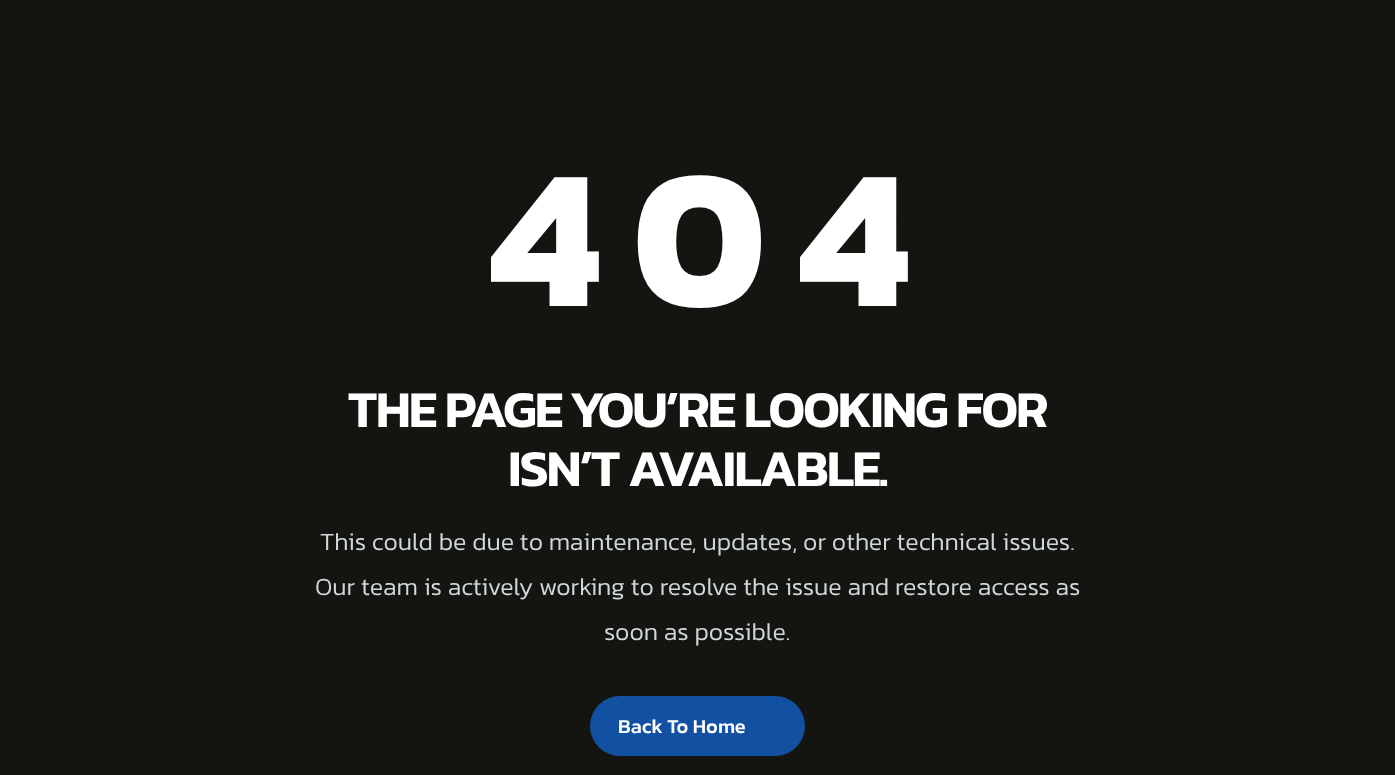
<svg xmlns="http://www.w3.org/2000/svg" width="1395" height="775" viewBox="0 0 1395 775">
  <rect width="100%" height="100%" fill="rgb(20,21,17)"/>
  <text x="490" y="306" font-family="Kanit" font-size="200" font-weight="bold" letter-spacing="-4" fill="rgb(255,255,255)">4 0 4</text>
  <g font-family="Kanit" font-size="52" font-weight="600" letter-spacing="-2" fill="rgb(255,255,255)">
    <text x="348" y="427">THE PAGE YOU’RE LOOKING FOR</text>
    <text x="508" y="486">ISN’T AVAILABLE.</text>
  </g>
  <g font-family="Kanit" font-size="25" font-weight="300" fill="rgb(207,215,218)">
    <text x="320" y="550">This could be due to maintenance, updates, or other technical issues.</text>
    <text x="315" y="595">Our team is actively working to resolve the issue and restore access as</text>
    <text x="604" y="640">soon as possible.</text>
  </g>
  <rect x="590" y="696" width="215" height="60" rx="30" fill="rgb(18,80,161)"/>
  <text x="618" y="733" font-family="Kanit" font-size="20" font-weight="500" fill="rgb(255,255,255)">Back To Home</text>
</svg>
